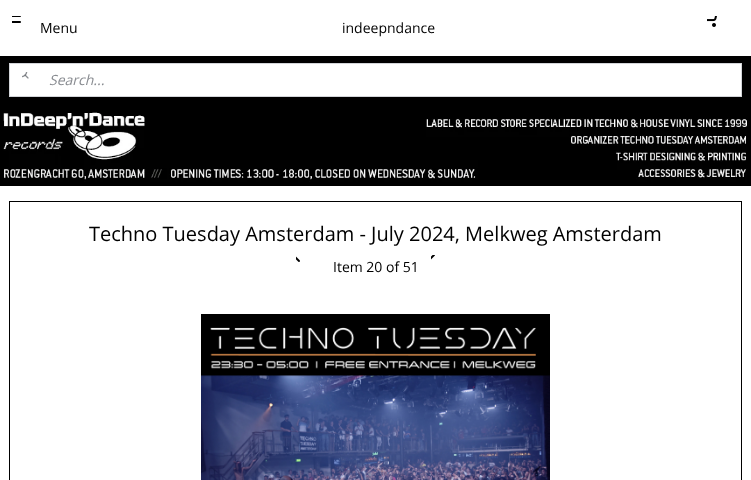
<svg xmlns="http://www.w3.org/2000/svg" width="751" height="480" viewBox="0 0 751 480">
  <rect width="100%" height="100%" fill="rgb(255,255,255)"/>
  <image x="12" y="16" width="9" height="7" href="pic1.png"/>
  <g font-family="Open Sans" font-size="14" fill="rgb(0,0,0)">
    <text x="40" y="33">Menu</text>
    <text x="342" y="33">indeepndance</text>
  </g>
  <image x="707" y="16" width="10" height="11" href="pic2.png"/>
  <rect x="0" y="56" width="751" height="130" fill="rgb(0,0,0)"/>
  <rect x="9.5" y="63.5" width="732" height="33" fill="rgb(255,255,255)" stroke="rgb(211,213,217)"/>
  <image x="22" y="72" width="7" height="7" href="pic3.png"/>
  <text x="49" y="85" font-family="Open Sans" font-size="14" font-style="italic" fill="rgb(137,140,145)">Search...</text>
  <image x="3" y="112" width="744" height="70" href="pic4.png"/>
  <rect x="9.5" y="201.5" width="732" height="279" fill="none" stroke="rgb(0,0,0)"/>
  <text x="89" y="241" font-family="Open Sans" font-size="20" fill="rgb(0,0,0)">Techno Tuesday Amsterdam - July 2024, Melkweg Amsterdam</text>
  <image x="296" y="256" width="4" height="6" href="pic5.png"/>
  <image x="431" y="255" width="4" height="5" href="pic6.png"/>
  <text x="333" y="272" font-family="Open Sans" font-size="14" fill="rgb(0,0,0)">Item 20 of 51</text>
  <image x="201" y="314" width="349" height="166" href="pic7.png"/>
</svg>
